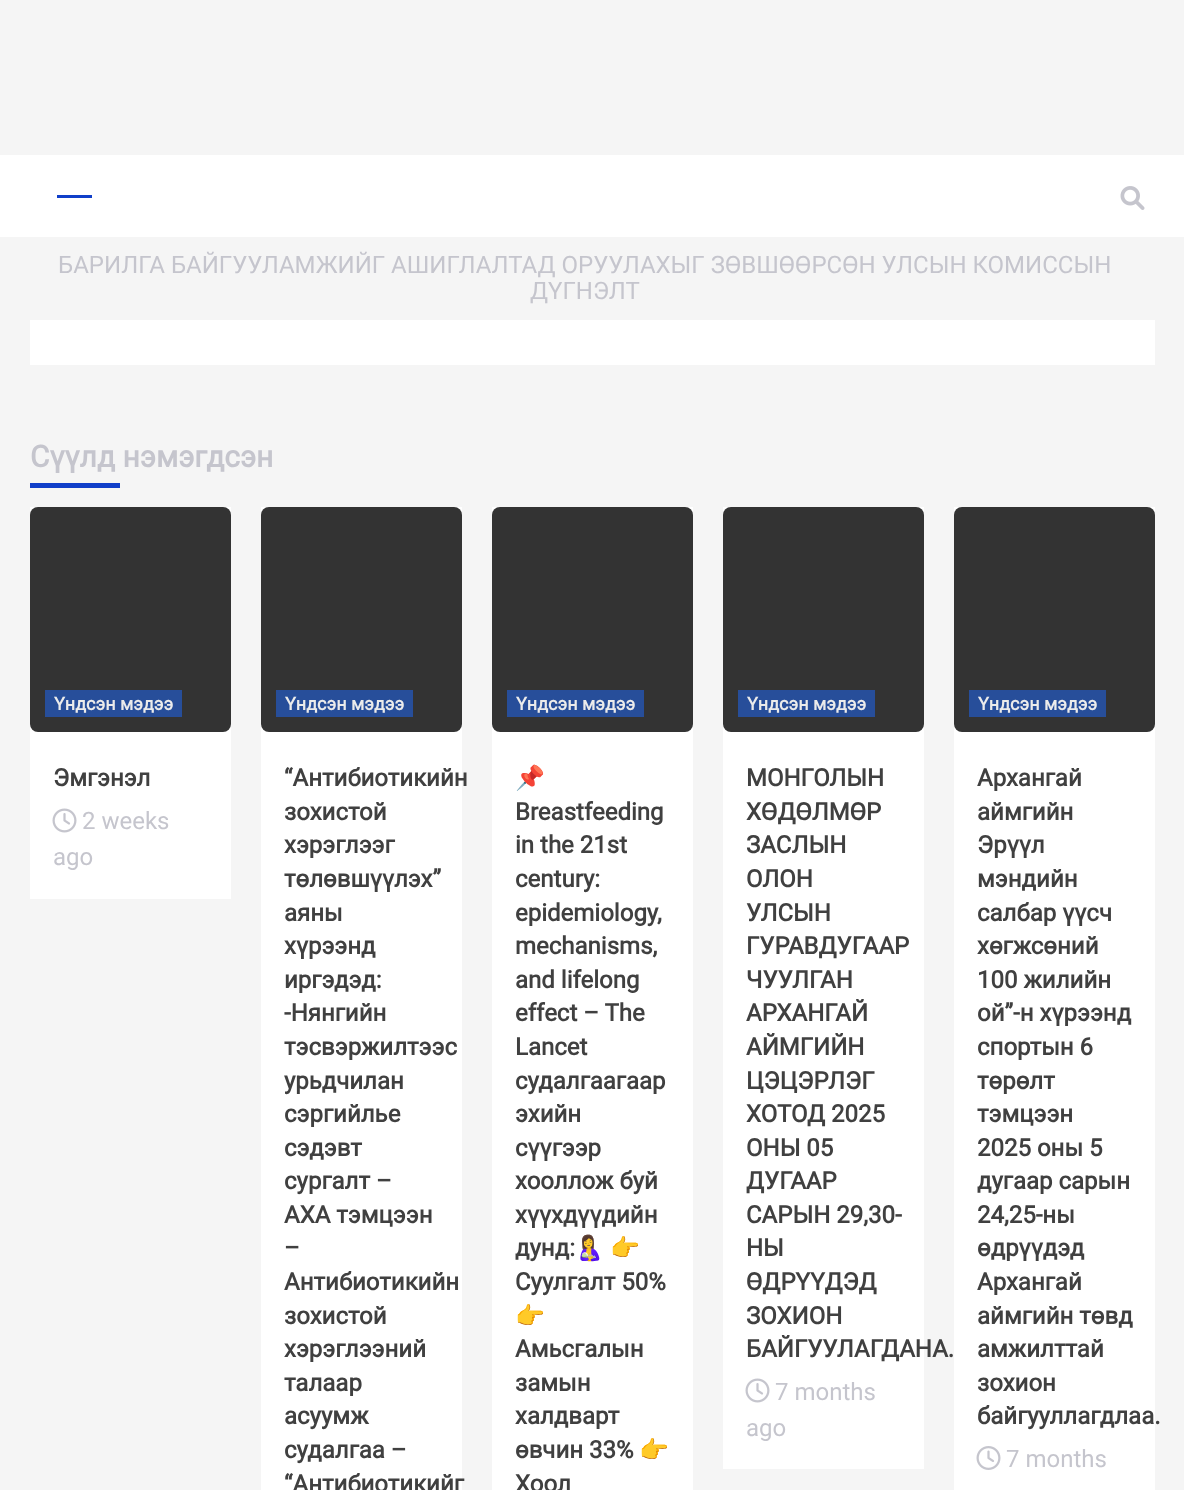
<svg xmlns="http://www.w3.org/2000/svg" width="1184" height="1490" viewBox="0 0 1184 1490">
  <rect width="100%" height="100%" fill="rgb(245,245,245)"/>
  <rect x="0" y="155" width="1184" height="82" fill="rgb(255,255,255)"/>
  <rect x="57" y="195" width="35" height="3" fill="rgb(16,63,201)"/>
  <image x="1120" y="186" width="25" height="24" href="pic1.png"/>
  <g font-family="Roboto" font-size="24" fill="rgb(197,197,205)">
    <text x="58" y="273">БАРИЛГА БАЙГУУЛАМЖИЙГ АШИГЛАЛТАД ОРУУЛАХЫГ ЗӨВШӨӨРСӨН УЛСЫН КОМИССЫН</text>
    <text x="530" y="299">ДҮГНЭЛТ</text>
  </g>
  <rect x="30" y="320" width="1125" height="45" fill="rgb(255,255,255)"/>
  <text x="30" y="467" font-family="Roboto" font-size="30" font-weight="bold" fill="rgb(197,197,205)">Сүүлд нэмэгдсэн</text>
  <rect x="30" y="483" width="90" height="5" fill="rgb(16,63,201)"/>
  <rect x="30" y="507" width="201" height="392" fill="rgb(255,255,255)"/>
  <rect x="30" y="507" width="201" height="225" rx="8" fill="rgb(51,51,51)"/>
  <rect x="45" y="690" width="137" height="27" fill="rgb(39,78,154)"/>
  <text x="54" y="710" font-family="Roboto" font-size="18" font-weight="bold" fill="rgb(235,235,235)">Үндсэн мэдээ</text>
  <text x="53" y="786" font-family="Roboto" font-size="24" font-weight="bold" fill="rgb(64,64,64)">Эмгэнэл</text>
  <image x="52" y="808" width="25" height="25" href="pic2.png"/>
  <g font-family="Roboto" font-size="24" fill="rgb(197,197,205)">
    <text x="82" y="829">2 weeks</text>
    <text x="53" y="865">ago</text>
  </g>
  <rect x="261" y="507" width="201" height="983" fill="rgb(255,255,255)"/>
  <rect x="261" y="507" width="201" height="225" rx="8" fill="rgb(51,51,51)"/>
  <rect x="276" y="690" width="137" height="27" fill="rgb(39,78,154)"/>
  <text x="285" y="710" font-family="Roboto" font-size="18" font-weight="bold" fill="rgb(235,235,235)">Үндсэн мэдээ</text>
  <g font-family="Roboto" font-size="24" font-weight="bold" fill="rgb(64,64,64)">
    <text>
      <tspan x="284" y="786">“Антибиотикийн</tspan>
      <tspan x="284" y="820">зохистой</tspan>
      <tspan x="284" y="853">хэрэглээг</tspan>
      <tspan x="284" y="887">төлөвшүүлэх”</tspan>
      <tspan x="284" y="921">аяны</tspan>
      <tspan x="284" y="954">хүрээнд</tspan>
      <tspan x="284" y="988">иргэдэд:</tspan>
      <tspan x="284" y="1021">-Нянгийн</tspan>
      <tspan x="284" y="1055">тэсвэржилтээс</tspan>
      <tspan x="284" y="1089">урьдчилан</tspan>
      <tspan x="284" y="1122">сэргийлье</tspan>
      <tspan x="284" y="1156">сэдэвт</tspan>
      <tspan x="284" y="1189">сургалт –</tspan>
      <tspan x="284" y="1223">АХА тэмцээн</tspan>
      <tspan x="284" y="1256">–</tspan>
      <tspan x="284" y="1290">Антибиотикийн</tspan>
      <tspan x="284" y="1324">зохистой</tspan>
      <tspan x="284" y="1357">хэрэглээний</tspan>
      <tspan x="284" y="1391">талаар</tspan>
      <tspan x="284" y="1424">асуумж</tspan>
      <tspan x="284" y="1458">судалгаа –</tspan>
      <tspan x="284" y="1492">“Антибиотикийг</tspan>
    </text>
  </g>
  <rect x="492" y="507" width="201" height="983" fill="rgb(255,255,255)"/>
  <rect x="492" y="507" width="201" height="225" rx="8" fill="rgb(51,51,51)"/>
  <rect x="507" y="690" width="137" height="27" fill="rgb(39,78,154)"/>
  <text x="516" y="710" font-family="Roboto" font-size="18" font-weight="bold" fill="rgb(235,235,235)">Үндсэн мэдээ</text>
  <text x="515" y="786" font-family="Noto Color Emoji" font-size="24" font-weight="bold" fill="rgb(64,64,64)">📌</text>
  <g font-family="Roboto" font-size="24" font-weight="bold" fill="rgb(64,64,64)">
    <text>
      <tspan x="515" y="820">Breastfeeding</tspan>
      <tspan x="515" y="853">in the 21st</tspan>
      <tspan x="515" y="887">century:</tspan>
      <tspan x="515" y="921">epidemiology,</tspan>
      <tspan x="515" y="954">mechanisms,</tspan>
      <tspan x="515" y="988">and lifelong</tspan>
      <tspan x="515" y="1021">effect – The</tspan>
      <tspan x="515" y="1055">Lancet</tspan>
      <tspan x="515" y="1089">судалгаагаар</tspan>
      <tspan x="515" y="1122">эхийн</tspan>
      <tspan x="515" y="1156">сүүгээр</tspan>
      <tspan x="515" y="1189">хооллож буй</tspan>
      <tspan x="515" y="1223">хүүхдүүдийн</tspan>
      <tspan x="515" y="1256">дунд:</tspan>
    </text>
  </g>
  <g font-family="Noto Color Emoji" font-size="24" font-weight="bold" fill="rgb(64,64,64)">
    <text x="574" y="1256">🤱</text>
    <text x="610" y="1256">👉</text>
  </g>
  <text x="515" y="1290" font-family="Roboto" font-size="24" font-weight="bold" fill="rgb(64,64,64)">Суулгалт 50%</text>
  <text x="515" y="1324" font-family="Noto Color Emoji" font-size="24" font-weight="bold" fill="rgb(64,64,64)">👉</text>
  <g font-family="Roboto" font-size="24" font-weight="bold" fill="rgb(64,64,64)">
    <text>
      <tspan x="515" y="1357">Амьсгалын</tspan>
      <tspan x="515" y="1391">замын</tspan>
      <tspan x="515" y="1424">халдварт</tspan>
      <tspan x="515" y="1458">өвчин 33%</tspan>
    </text>
  </g>
  <text x="639" y="1458" font-family="Noto Color Emoji" font-size="24" font-weight="bold" fill="rgb(64,64,64)">👉</text>
  <text x="515" y="1492" font-family="Roboto" font-size="24" font-weight="bold" fill="rgb(64,64,64)">Хоол</text>
  <rect x="723" y="507" width="201" height="962" fill="rgb(255,255,255)"/>
  <rect x="723" y="507" width="201" height="225" rx="8" fill="rgb(51,51,51)"/>
  <rect x="738" y="690" width="137" height="27" fill="rgb(39,78,154)"/>
  <text x="747" y="710" font-family="Roboto" font-size="18" font-weight="bold" fill="rgb(235,235,235)">Үндсэн мэдээ</text>
  <g font-family="Roboto" font-size="24" font-weight="bold" fill="rgb(64,64,64)">
    <text>
      <tspan x="746" y="786">МОНГОЛЫН</tspan>
      <tspan x="746" y="820">ХӨДӨЛМӨР</tspan>
      <tspan x="746" y="853">ЗАСЛЫН</tspan>
      <tspan x="746" y="887">ОЛОН</tspan>
      <tspan x="746" y="921">УЛСЫН</tspan>
      <tspan x="746" y="954">ГУРАВДУГААР</tspan>
      <tspan x="746" y="988">ЧУУЛГАН</tspan>
      <tspan x="746" y="1021">АРХАНГАЙ</tspan>
      <tspan x="746" y="1055">АЙМГИЙН</tspan>
      <tspan x="746" y="1089">ЦЭЦЭРЛЭГ</tspan>
      <tspan x="746" y="1122">ХОТОД 2025</tspan>
      <tspan x="746" y="1156">ОНЫ 05</tspan>
      <tspan x="746" y="1189">ДУГААР</tspan>
      <tspan x="746" y="1223">САРЫН 29,30-</tspan>
      <tspan x="746" y="1256">НЫ</tspan>
      <tspan x="746" y="1290">ӨДРҮҮДЭД</tspan>
      <tspan x="746" y="1324">ЗОХИОН</tspan>
      <tspan x="746" y="1357">БАЙГУУЛАГДАНА.</tspan>
    </text>
  </g>
  <image x="745" y="1378" width="25" height="25" href="pic2.png"/>
  <g font-family="Roboto" font-size="24" fill="rgb(197,197,205)">
    <text x="775" y="1400">7 months</text>
    <text x="746" y="1436">ago</text>
  </g>
  <rect x="954" y="507" width="201" height="983" fill="rgb(255,255,255)"/>
  <rect x="954" y="507" width="201" height="225" rx="8" fill="rgb(51,51,51)"/>
  <rect x="969" y="690" width="137" height="27" fill="rgb(39,78,154)"/>
  <text x="978" y="710" font-family="Roboto" font-size="18" font-weight="bold" fill="rgb(235,235,235)">Үндсэн мэдээ</text>
  <g font-family="Roboto" font-size="24" font-weight="bold" fill="rgb(64,64,64)">
    <text>
      <tspan x="977" y="786">Архангай</tspan>
      <tspan x="977" y="820">аймгийн</tspan>
      <tspan x="977" y="853">Эрүүл</tspan>
      <tspan x="977" y="887">мэндийн</tspan>
      <tspan x="977" y="921">салбар үүсч</tspan>
      <tspan x="977" y="954">хөгжсөний</tspan>
      <tspan x="977" y="988">100 жилийн</tspan>
      <tspan x="977" y="1021">ой”-н хүрээнд</tspan>
      <tspan x="977" y="1055">спортын 6</tspan>
      <tspan x="977" y="1089">төрөлт</tspan>
      <tspan x="977" y="1122">тэмцээн</tspan>
      <tspan x="977" y="1156">2025 оны 5</tspan>
      <tspan x="977" y="1189">дугаар сарын</tspan>
      <tspan x="977" y="1223">24,25-ны</tspan>
      <tspan x="977" y="1256">өдрүүдэд</tspan>
      <tspan x="977" y="1290">Архангай</tspan>
      <tspan x="977" y="1324">аймгийн төвд</tspan>
      <tspan x="977" y="1357">амжилттай</tspan>
      <tspan x="977" y="1391">зохион</tspan>
      <tspan x="977" y="1424">байгууллагдлаа.</tspan>
    </text>
  </g>
  <image x="976" y="1446" width="25" height="24" href="pic3.png"/>
  <text x="1006" y="1467" font-family="Roboto" font-size="24" fill="rgb(197,197,205)">7 months</text>
</svg>
